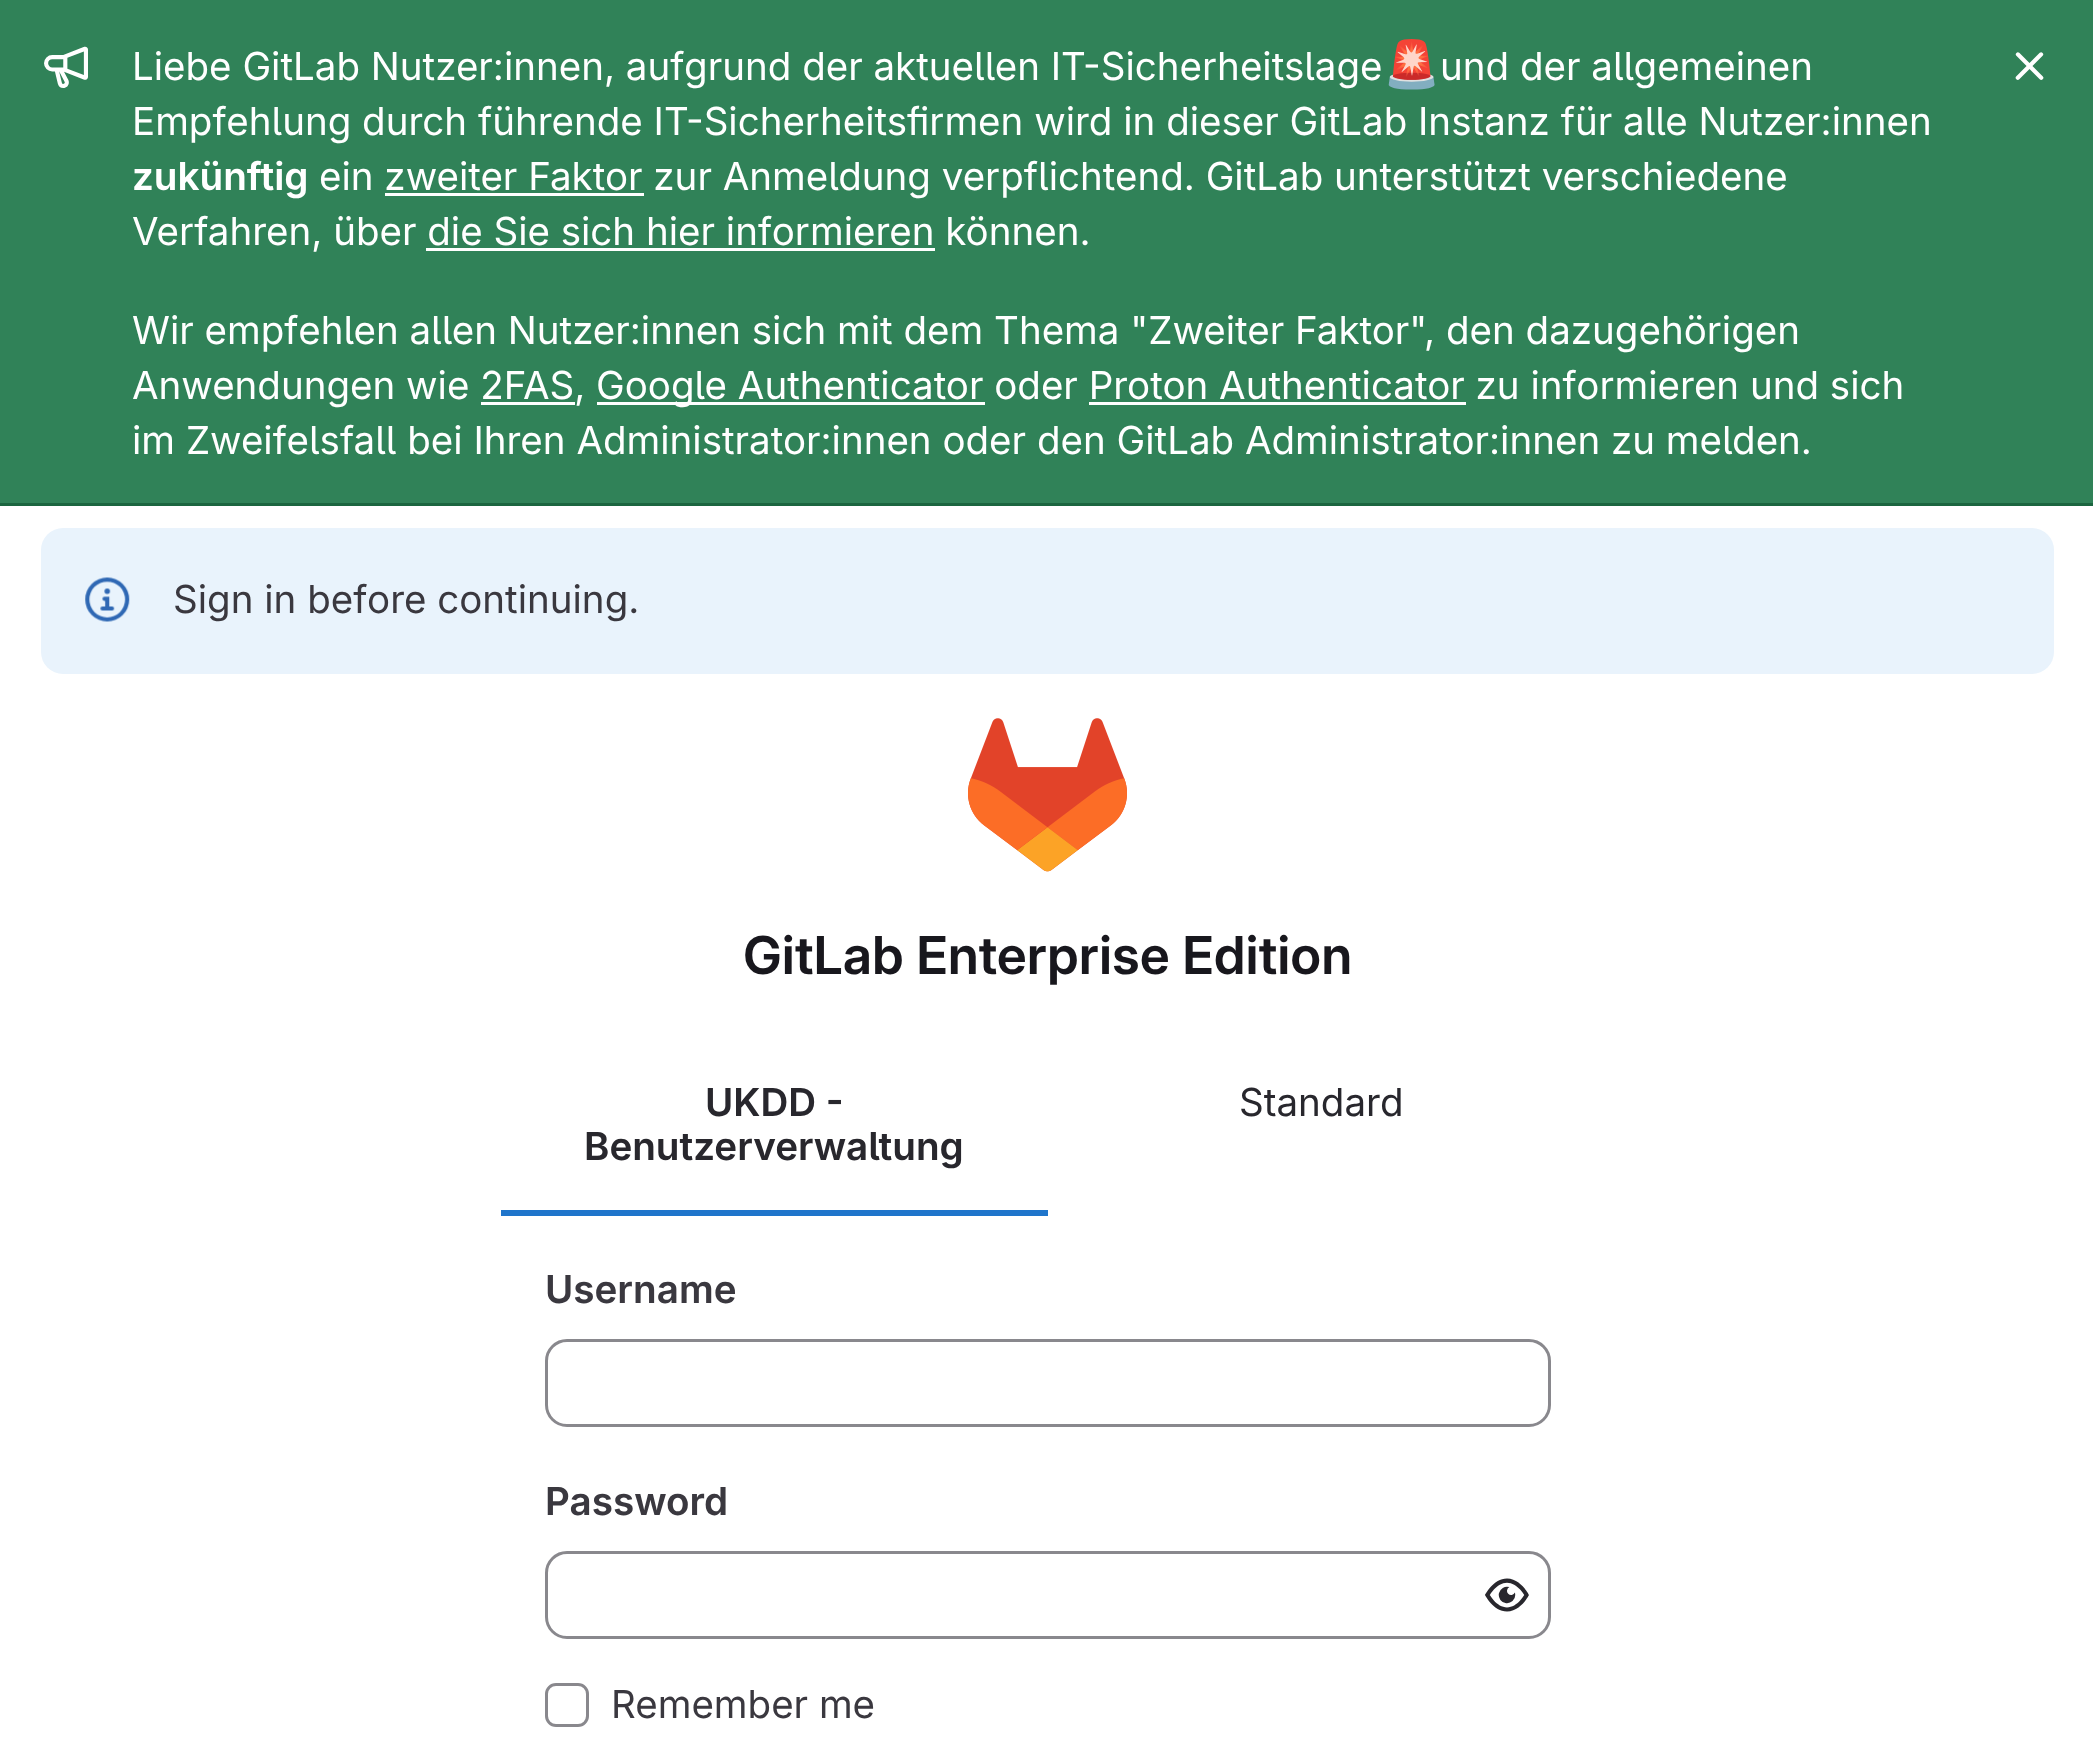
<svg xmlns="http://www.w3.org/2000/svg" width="2093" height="1743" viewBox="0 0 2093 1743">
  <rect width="100%" height="100%" fill="rgb(255,255,255)"/>
  <rect x="0" y="0" width="2093" height="503" fill="rgb(48,130,88)"/>
  <rect x="0" y="503" width="2093" height="3" fill="rgb(27,101,63)"/>
  <image x="44" y="46" width="44" height="42" href="pic1.png"/>
  <text x="132" y="80" font-family="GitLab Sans" font-size="38.5" fill="rgb(255,255,255)">Liebe GitLab Nutzer:innen, aufgrund der aktuellen IT-Sicherheitslage</text>
  <text x="1383" y="80" font-family="Noto Color Emoji" font-size="46" fill="rgb(255,255,255)">🚨</text>
  <g font-family="GitLab Sans" font-size="38.5" fill="rgb(255,255,255)">
    <text x="1440" y="80">und der allgemeinen</text>
    <text x="132" y="135">Empfehlung durch führende IT-Sicherheitsfirmen wird in dieser GitLab Instanz für alle Nutzer:innen</text>
  </g>
  <text x="132" y="190" font-family="GitLab Sans" font-size="38.5" font-weight="600" fill="rgb(255,255,255)">zukünftig</text>
  <text x="319" y="190" font-family="GitLab Sans" font-size="38.5" fill="rgb(255,255,255)">ein zweiter Faktor zur Anmeldung verpflichtend. GitLab unterstützt verschiedene</text>
  <rect x="385" y="193" width="259" height="3" fill="rgb(255,255,255)"/>
  <text x="132" y="245" font-family="GitLab Sans" font-size="38.5" fill="rgb(255,255,255)">Verfahren, über die Sie sich hier informieren können.</text>
  <rect x="426" y="248" width="509" height="3" fill="rgb(255,255,255)"/>
  <g font-family="GitLab Sans" font-size="38.5" fill="rgb(255,255,255)">
    <text>
      <tspan x="132" y="344">Wir empfehlen allen Nutzer:innen sich mit dem Thema "Zweiter Faktor", den dazugehörigen</tspan>
      <tspan x="132" y="399">Anwendungen wie 2FAS,</tspan>
    </text>
  </g>
  <rect x="597" y="402" width="388" height="3" fill="rgb(255,255,255)"/>
  <text x="596" y="399" font-family="GitLab Sans" font-size="38.5" fill="rgb(255,255,255)">Google Authenticator oder Proton Authenticator zu informieren und sich</text>
  <rect x="481" y="402" width="94" height="3" fill="rgb(255,255,255)"/>
  <rect x="1089" y="402" width="377" height="3" fill="rgb(255,255,255)"/>
  <text x="132" y="454" font-family="GitLab Sans" font-size="38.5" fill="rgb(255,255,255)">im Zweifelsfall bei Ihren Administrator:innen oder den GitLab Administrator:innen zu melden.</text>
  <image x="2015" y="52" width="29" height="28" href="pic2.png"/>
  <rect x="41" y="528" width="2013" height="146" rx="22" fill="rgb(233,243,252)"/>
  <image x="85" y="577" width="45" height="45" href="pic3.png"/>
  <text x="173" y="613" font-family="GitLab Sans" font-size="38.5" fill="rgb(58,56,63)">Sign in before continuing.</text>
  <image x="968" y="718" width="159" height="154" href="pic4.png"/>
  <text x="743" y="974" font-family="'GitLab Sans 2'" font-size="52.25" font-weight="600" fill="rgb(24,23,29)">GitLab Enterprise Edition</text>
  <g font-family="GitLab Sans" font-size="38.5" font-weight="600" fill="rgb(40,39,45)">
    <text x="705" y="1116">UKDD -</text>
    <text x="584" y="1160">Benutzerverwaltung</text>
  </g>
  <rect x="501" y="1210" width="547" height="6" fill="rgb(31,117,203)"/>
  <text x="1239" y="1116" font-family="GitLab Sans" font-size="38.5" fill="rgb(40,39,45)">Standard</text>
  <text x="545" y="1303" font-family="GitLab Sans" font-size="38.5" font-weight="600" fill="rgb(58,56,63)">Username</text>
  <rect x="546.5" y="1340.5" width="1003" height="85" rx="20.5" fill="none" stroke="rgb(137,136,141)" stroke-width="3"/>
  <text x="545" y="1515" font-family="GitLab Sans" font-size="38.5" font-weight="600" fill="rgb(58,56,63)">Password</text>
  <rect x="546.5" y="1552.5" width="1003" height="85" rx="20.5" fill="none" stroke="rgb(137,136,141)" stroke-width="3"/>
  <image x="1485" y="1578" width="44" height="34" href="pic5.png"/>
  <rect x="546.5" y="1684.5" width="41" height="41" rx="9.5" fill="none" stroke="rgb(137,136,141)" stroke-width="3"/>
  <text x="611" y="1718" font-family="GitLab Sans" font-size="38.5" fill="rgb(58,56,63)">Remember me</text>
</svg>
